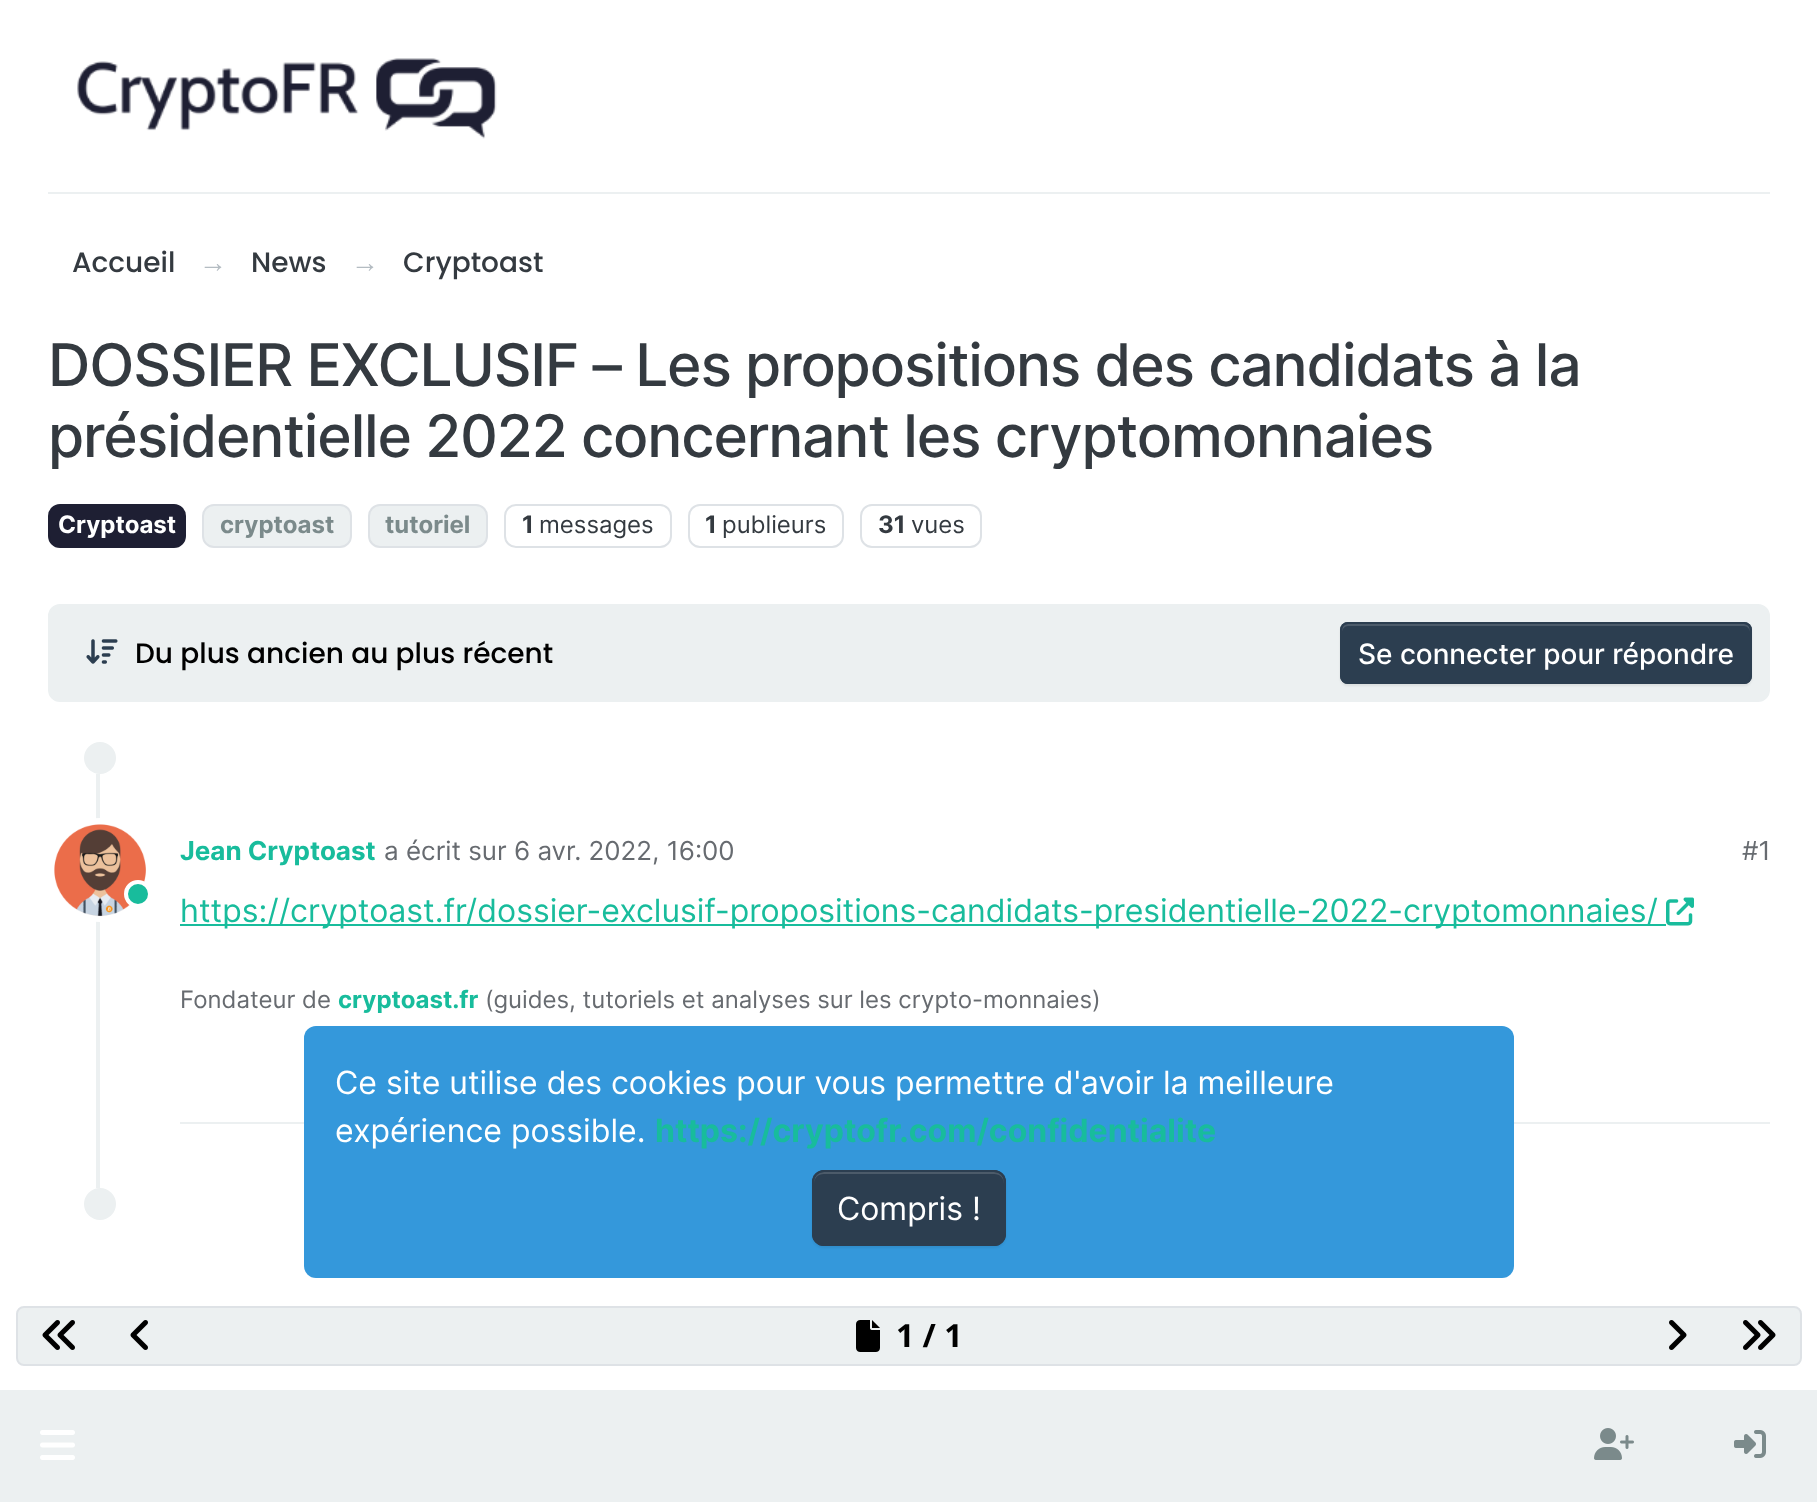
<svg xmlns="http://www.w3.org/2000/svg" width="1817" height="1502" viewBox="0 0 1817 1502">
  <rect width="100%" height="100%" fill="rgb(255,255,255)"/>
  <rect x="48" y="192" width="1722" height="2" fill="rgb(236,240,241)"/>
  <image x="77" y="58" width="420" height="81" href="pic1.png"/>
  <text x="72" y="272" font-family="Poppins" font-size="28" font-weight="500" fill="rgb(52,58,64)">Accueil</text>
  <text x="199" y="272" font-family="Liberation Sans" font-size="28" fill="rgb(180,188,194)">→</text>
  <text x="251" y="272" font-family="Poppins" font-size="28" font-weight="500" fill="rgb(52,58,64)">News</text>
  <text x="351" y="272" font-family="Liberation Sans" font-size="28" fill="rgb(180,188,194)">→</text>
  <text x="403" y="272" font-family="Poppins" font-size="28" font-weight="500" fill="rgb(52,58,64)">Cryptoast</text>
  <g font-family="Inter" font-size="58.75" font-weight="500" letter-spacing="-1.18" fill="rgb(52,58,64)">
    <text>
      <tspan x="48" y="386">DOSSIER EXCLUSIF – Les propositions des candidats à la</tspan>
      <tspan x="48" y="457">présidentielle 2022 concernant les cryptomonnaies</tspan>
    </text>
  </g>
  <rect x="49" y="505" width="136" height="42" rx="11" fill="rgb(30,31,51)" stroke="rgb(30,31,51)" stroke-width="2"/>
  <text x="58" y="533" font-family="Inter" font-size="24" font-weight="bold" fill="rgb(255,255,255)">Cryptoast</text>
  <rect x="203" y="505" width="148" height="42" rx="11" fill="rgb(236,240,241)" stroke="rgb(222,226,230)" stroke-width="2"/>
  <text x="220" y="533" font-family="Inter" font-size="24" font-weight="bold" fill="rgb(123,138,139)">cryptoast</text>
  <rect x="369" y="505" width="118" height="42" rx="11" fill="rgb(236,240,241)" stroke="rgb(222,226,230)" stroke-width="2"/>
  <text x="385" y="533" font-family="Inter" font-size="24" font-weight="bold" fill="rgb(123,138,139)">tutoriel</text>
  <rect x="505" y="505" width="166" height="42" rx="11" fill="none" stroke="rgb(222,226,230)" stroke-width="2"/>
  <text x="522" y="533" font-family="Inter" font-size="24" font-weight="bold" fill="rgb(52,58,64)">1</text>
  <text x="539" y="533" font-family="Inter" font-size="24" fill="rgb(52,58,64)">messages</text>
  <rect x="689" y="505" width="154" height="42" rx="11" fill="none" stroke="rgb(222,226,230)" stroke-width="2"/>
  <text x="705" y="533" font-family="Inter" font-size="24" font-weight="bold" fill="rgb(52,58,64)">1</text>
  <text x="722" y="533" font-family="Inter" font-size="24" fill="rgb(52,58,64)">publieurs</text>
  <rect x="861" y="505" width="120" height="42" rx="11" fill="none" stroke="rgb(222,226,230)" stroke-width="2"/>
  <text x="878" y="533" font-family="Inter" font-size="24" font-weight="bold" fill="rgb(52,58,64)">31</text>
  <text x="911" y="533" font-family="Inter" font-size="24" fill="rgb(52,58,64)">vues</text>
  <rect x="49" y="605" width="1720" height="96" rx="11" fill="rgb(236,240,241)" stroke="rgb(236,240,241)" stroke-width="2"/>
  <image x="86" y="639" width="32" height="25" href="pic2.png"/>
  <text x="135" y="663" font-family="Poppins" font-size="28" font-weight="500" fill="rgb(0,0,0)">Du plus ancien au plus récent</text>
  <rect x="1340" y="624" width="412" height="62" rx="8" fill="rgba(0,0,0,0.07)" filter="blur(1px)"/>
  <rect x="1340" y="622" width="412" height="62" rx="8" fill="rgb(44,62,80)"/>
  <path d="M1348 626H1744C1747 626 1750 629 1750 632C1750 628 1749 624 1744 624H1348C1343 624 1342 628 1342 632C1342 629 1345 626 1348 626Z" fill="rgb(76,91,106)"/>
  <rect x="1341" y="623" width="410" height="60" rx="7" fill="none" stroke="rgb(44,62,80)" stroke-width="2"/>
  <text x="1358" y="664" font-family="Inter" font-size="28" font-weight="500" fill="rgb(255,255,255)">Se connecter pour répondre</text>
  <rect x="96" y="774" width="4" height="414" fill="rgb(236,240,241)"/>
  <circle cx="100" cy="758" r="16" fill="rgb(236,240,241)"/>
  <circle cx="100" cy="870" r="50" fill="rgb(255,255,255)" stroke="rgb(255,255,255)" stroke-width="4"/>
  <image x="54" y="824" width="92" height="93" href="pic3.png"/>
  <circle cx="138" cy="894" r="12" fill="rgb(24,188,156)" stroke="rgb(255,255,255)" stroke-width="4"/>
  <text x="180" y="860" font-family="Inter" font-size="26" font-weight="bold" fill="rgb(24,188,156)">Jean Cryptoast</text>
  <g font-family="Inter" font-size="26" fill="rgb(103,107,112)">
    <text x="384" y="860">a écrit sur 6 avr. 2022, 16:00</text>
    <text x="1742" y="860">#1</text>
  </g>
  <rect x="180" y="924" width="1486" height="2" fill="rgb(24,188,156)"/>
  <text x="180" y="922" font-family="Inter" font-size="32" fill="rgb(24,188,156)">https://cryptoast.fr/dossier-exclusif-propositions-candidats-presidentielle-2022-cryptomonnaies/</text>
  <image x="1666" y="897" width="28" height="29" href="pic4.png"/>
  <rect x="180" y="1122" width="1590" height="2" fill="rgb(236,240,241)"/>
  <text x="180" y="1008" font-family="Inter" font-size="24" fill="rgb(103,107,112)">Fondateur de</text>
  <text x="338" y="1008" font-family="Inter" font-size="24" font-weight="bold" fill="rgb(24,188,156)">cryptoast.fr</text>
  <text x="485" y="1008" font-family="Inter" font-size="24" fill="rgb(103,107,112)">(guides, tutoriels et analyses sur les crypto-monnaies)</text>
  <circle cx="100" cy="1204" r="16" fill="rgb(236,240,241)"/>
  <rect x="304" y="1026" width="1210" height="252" rx="12" fill="rgb(52,152,219)"/>
  <g font-family="Inter" font-size="32" fill="rgb(255,255,255)">
    <text>
      <tspan x="335" y="1094">Ce site utilise des cookies pour vous permettre d'avoir la meilleure</tspan>
      <tspan x="335" y="1142">expérience possible.</tspan>
    </text>
  </g>
  <text x="655" y="1142" font-family="Inter" font-size="32" font-weight="bold" fill="rgb(24,188,156)">https://cryptofr.com/confidentialite</text>
  <rect x="812" y="1172" width="194" height="76" rx="12" fill="rgba(0,0,0,0.07)" filter="blur(1px)"/>
  <rect x="812" y="1170" width="194" height="76" rx="12" fill="rgb(44,62,80)"/>
  <path d="M824 1174H994C1000 1174 1004 1178 1004 1184V1182C1004 1176 1000 1172 994 1172H824C818 1172 814 1176 814 1182V1184C814 1178 818 1174 824 1174Z" fill="rgb(76,91,106)"/>
  <rect x="813" y="1171" width="192" height="74" rx="11" fill="none" stroke="rgb(44,62,80)" stroke-width="2"/>
  <text x="837" y="1220" font-family="Inter" font-size="32" fill="rgb(255,255,255)">Compris !</text>
  <rect x="17" y="1307" width="1784" height="58" rx="7" fill="rgb(236,240,241)" stroke="rgb(222,226,230)" stroke-width="2"/>
  <image x="42" y="1320" width="33" height="30" href="pic5.png"/>
  <image x="130" y="1320" width="18" height="30" href="pic6.png"/>
  <image x="856" y="1320" width="24" height="32" href="pic7.png"/>
  <text x="896" y="1347" font-family="Noto Sans" font-size="32" font-weight="bold" fill="rgb(0,0,0)">1 / 1</text>
  <image x="1669" y="1320" width="18" height="30" href="pic8.png"/>
  <image x="1743" y="1320" width="33" height="30" href="pic9.png"/>
  <rect x="0" y="1390" width="1817" height="112" fill="rgb(236,240,241)"/>
  <image x="40" y="1430" width="35" height="30" href="pic10.png"/>
  <image x="1594" y="1428" width="40" height="32" href="pic11.png"/>
  <image x="1734" y="1430" width="32" height="28" href="pic12.png"/>
</svg>
